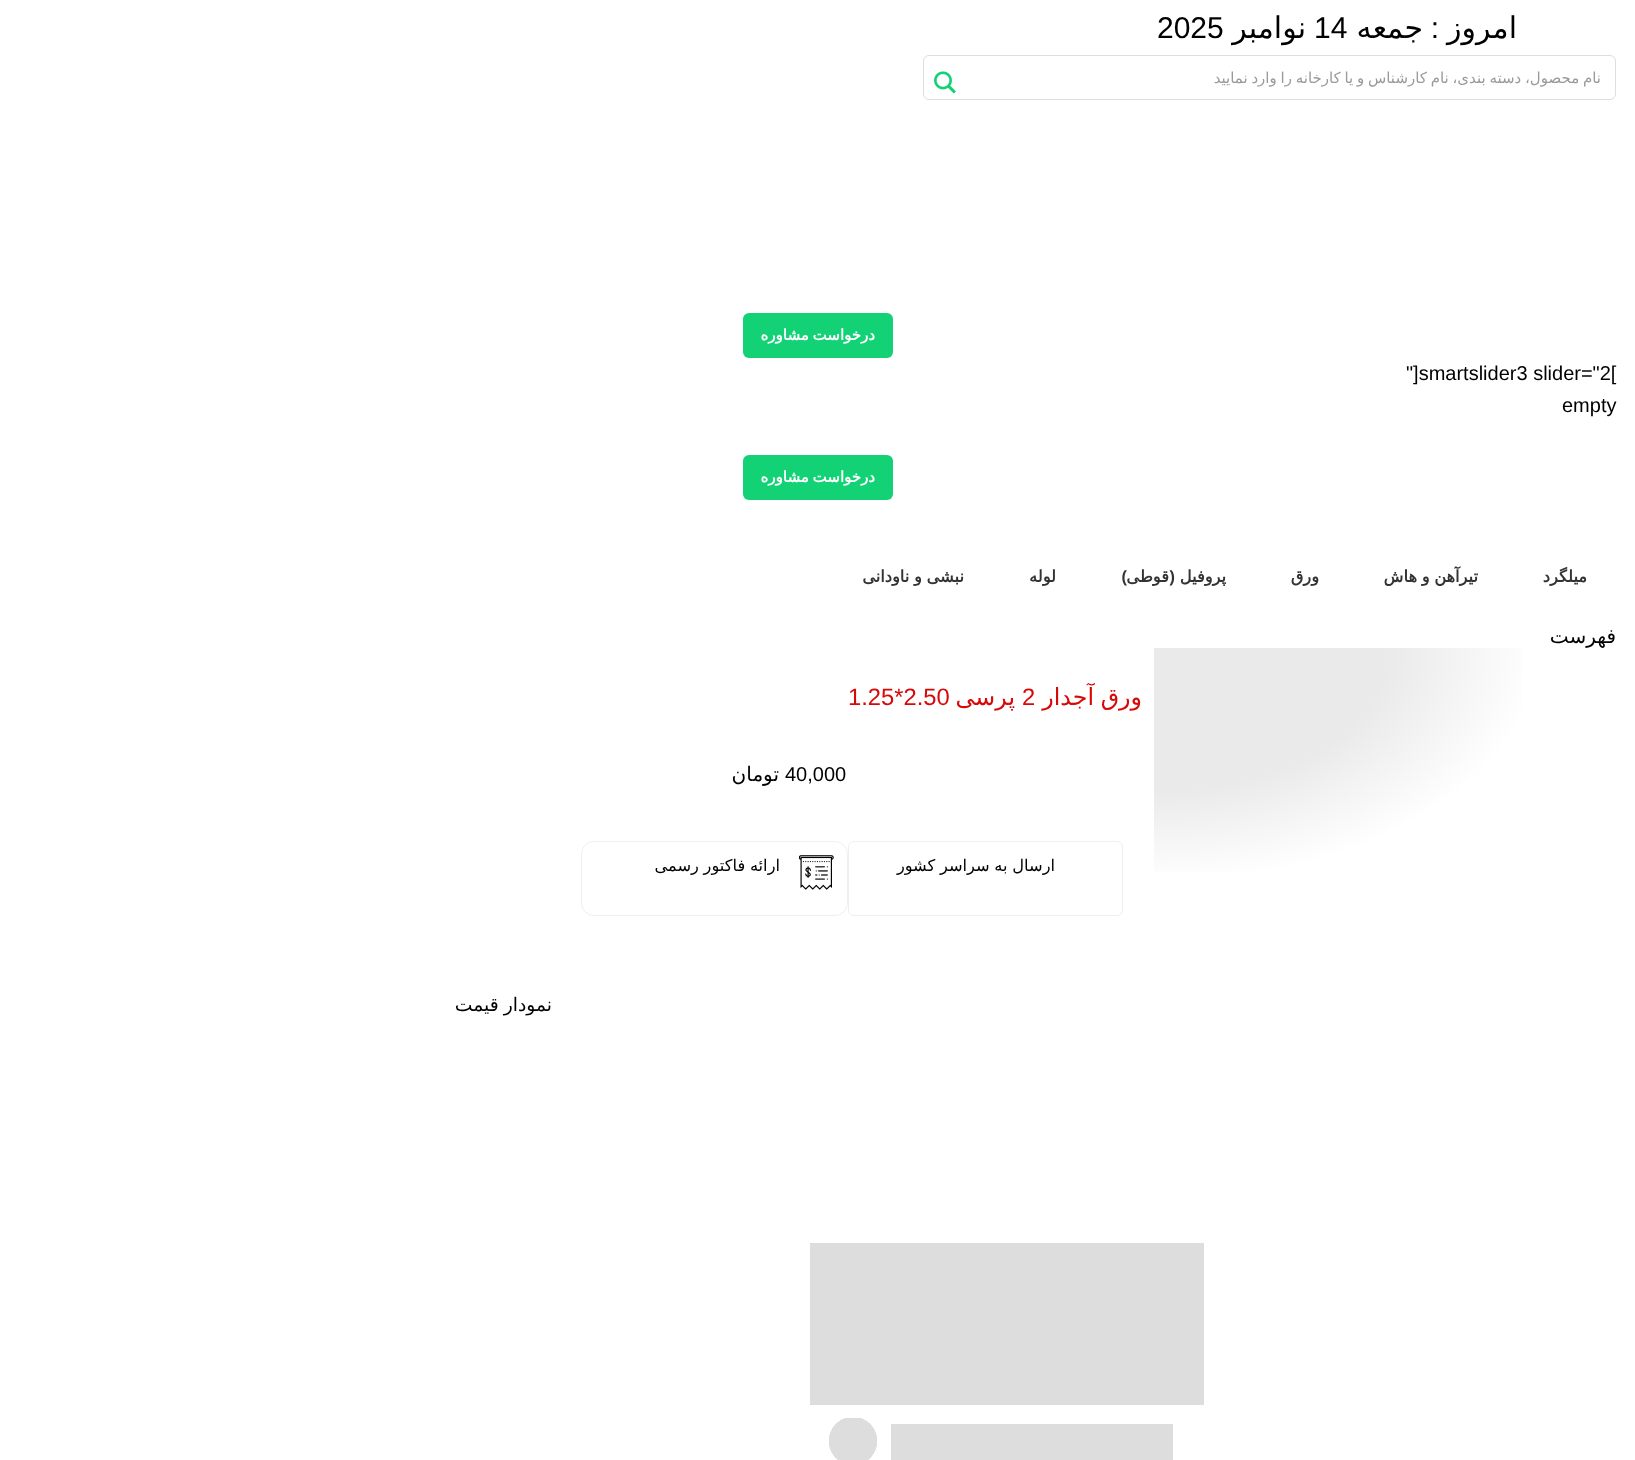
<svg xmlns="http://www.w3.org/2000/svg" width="1635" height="1460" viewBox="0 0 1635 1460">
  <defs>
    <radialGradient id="g1" gradientUnits="userSpaceOnUse" cx="0" cy="0" r="1" gradientTransform="matrix(654 0 0 398 1154 648)"><stop offset="0.36" stop-color="rgb(234,234,234)"/><stop offset="0.59" stop-color="rgb(255,255,255)"/></radialGradient>
    <radialGradient id="g2" gradientUnits="userSpaceOnUse" cx="853" cy="1441" r="48"><stop offset="0.5" stop-color="rgb(221,221,221)"/><stop offset="0.51" stop-color="rgb(221,221,221)" stop-opacity="0"/></radialGradient>
  </defs>
  <rect width="100%" height="100%" fill="rgb(255,255,255)"/>
  <text x="1517" y="38" font-family="DejaVu Sans" font-size="30" direction="rtl" fill="rgb(0,0,0)">امروز</text>
  <text x="1439" y="38" font-family="Liberation Sans" font-size="30" direction="rtl" fill="rgb(0,0,0)">:</text>
  <text x="1423" y="38" font-family="DejaVu Sans" font-size="30" direction="rtl" fill="rgb(0,0,0)">جمعه</text>
  <text x="1314" y="38" font-family="Liberation Sans" font-size="30" fill="rgb(0,0,0)">14</text>
  <text x="1306" y="38" font-family="DejaVu Sans" font-size="30" direction="rtl" fill="rgb(0,0,0)">نوامبر</text>
  <text x="1157" y="38" font-family="Liberation Sans" font-size="30" fill="rgb(0,0,0)">2025</text>
  <rect x="923.5" y="55.5" width="692" height="44" rx="5.5" fill="none" stroke="rgb(222,222,222)"/>
  <text x="1601" y="83" word-spacing="-1" font-family="DejaVu Sans" font-size="15" direction="rtl" fill="rgb(154,154,154)">نام محصول، دسته بندی، نام کارشناس و یا کارخانه را وارد نمایید</text>
  <image x="934" y="71" width="22" height="23" href="pic1.png"/>
  <rect x="743" y="313" width="150" height="45" rx="6" fill="rgb(19,210,118)"/>
  <text x="875" y="340" word-spacing="-1" font-family="DejaVu Sans" font-size="15" font-weight="bold" direction="rtl" fill="rgb(255,255,255)">درخواست مشاوره</text>
  <g font-family="Liberation Sans" font-size="20" fill="rgb(0,0,0)">
    <text x="1406" y="380">"]smartslider3 slider="2[</text>
    <text x="1562" y="412">empty</text>
  </g>
  <rect x="743" y="455" width="150" height="45" rx="6" fill="rgb(19,210,118)"/>
  <text x="875" y="482" word-spacing="-1" font-family="DejaVu Sans" font-size="15" font-weight="bold" direction="rtl" fill="rgb(255,255,255)">درخواست مشاوره</text>
  <g font-family="DejaVu Sans" font-size="16.25" font-weight="bold" direction="rtl" fill="rgb(51,51,51)">
    <text x="1587" y="582">میلگرد</text>
    <text x="1478" y="582" word-spacing="-0.5">تیرآهن و هاش</text>
    <text x="1319" y="582">ورق</text>
    <text x="1226" y="582">پروفیل</text>
  </g>
  <text x="1175" y="582" font-family="Liberation Sans" font-size="16.25" font-weight="bold" direction="rtl" fill="rgb(51,51,51)">(</text>
  <text x="1169" y="582" font-family="DejaVu Sans" font-size="16.25" font-weight="bold" direction="rtl" fill="rgb(51,51,51)">قوطی</text>
  <text x="1127" y="582" font-family="Liberation Sans" font-size="16.25" font-weight="bold" direction="rtl" fill="rgb(51,51,51)">)</text>
  <g font-family="DejaVu Sans" font-size="16.25" font-weight="bold" direction="rtl" fill="rgb(51,51,51)">
    <text x="1056" y="582">لوله</text>
    <text x="964" y="582" word-spacing="-0.5">نبشی و ناودانی</text>
  </g>
  <text x="1616" y="643" font-family="DejaVu Sans" font-size="20" direction="rtl" fill="rgb(0,0,0)">فهرست</text>
  <rect x="1154" y="648" width="368" height="224" fill="url(#g1)"/>
  <text x="1142" y="705" word-spacing="-1" font-family="DejaVu Sans" font-size="23.75" direction="rtl" fill="rgb(215,8,8)">ورق آجدار</text>
  <text x="1022" y="705" font-family="Liberation Sans" font-size="23.75" fill="rgb(215,8,8)">2</text>
  <text x="1015" y="705" font-family="DejaVu Sans" font-size="23.75" direction="rtl" fill="rgb(215,8,8)">پرسی</text>
  <text x="848" y="705" font-family="Liberation Sans" font-size="23.75" fill="rgb(215,8,8)">1.25*2.50</text>
  <text x="785" y="781" font-family="Liberation Sans" font-size="20" fill="rgb(0,0,0)">40,000</text>
  <text x="779" y="781" font-family="DejaVu Sans" font-size="20" direction="rtl" fill="rgb(0,0,0)">تومان</text>
  <rect x="848.5" y="841.5" width="274" height="74" rx="5.5" fill="none" stroke="rgb(239,239,239)"/>
  <text x="1055" y="871" word-spacing="-0.5" font-family="DejaVu Sans" font-size="16.25" direction="rtl" fill="rgb(0,0,0)">ارسال به سراسر کشور</text>
  <rect x="581.5" y="841.5" width="266" height="74" rx="12.5" fill="none" stroke="rgb(239,239,239)"/>
  <image x="799" y="855" width="35" height="35" href="pic2.png"/>
  <text x="780" y="871" word-spacing="-0.5" font-family="DejaVu Sans" font-size="16.25" direction="rtl" fill="rgb(0,0,0)">ارائه فاکتور رسمی</text>
  <text x="552" y="1011" word-spacing="-1" font-family="DejaVu Sans" font-size="18.75" direction="rtl" fill="rgb(0,0,0)">نمودار قیمت</text>
  <rect x="891" y="1424" width="282" height="36" fill="rgb(221,221,221)"/>
  <rect x="829" y="1418" width="48" height="42" fill="url(#g2)"/>
  <rect x="810" y="1243" width="394" height="162" fill="rgb(221,221,221)"/>
</svg>
